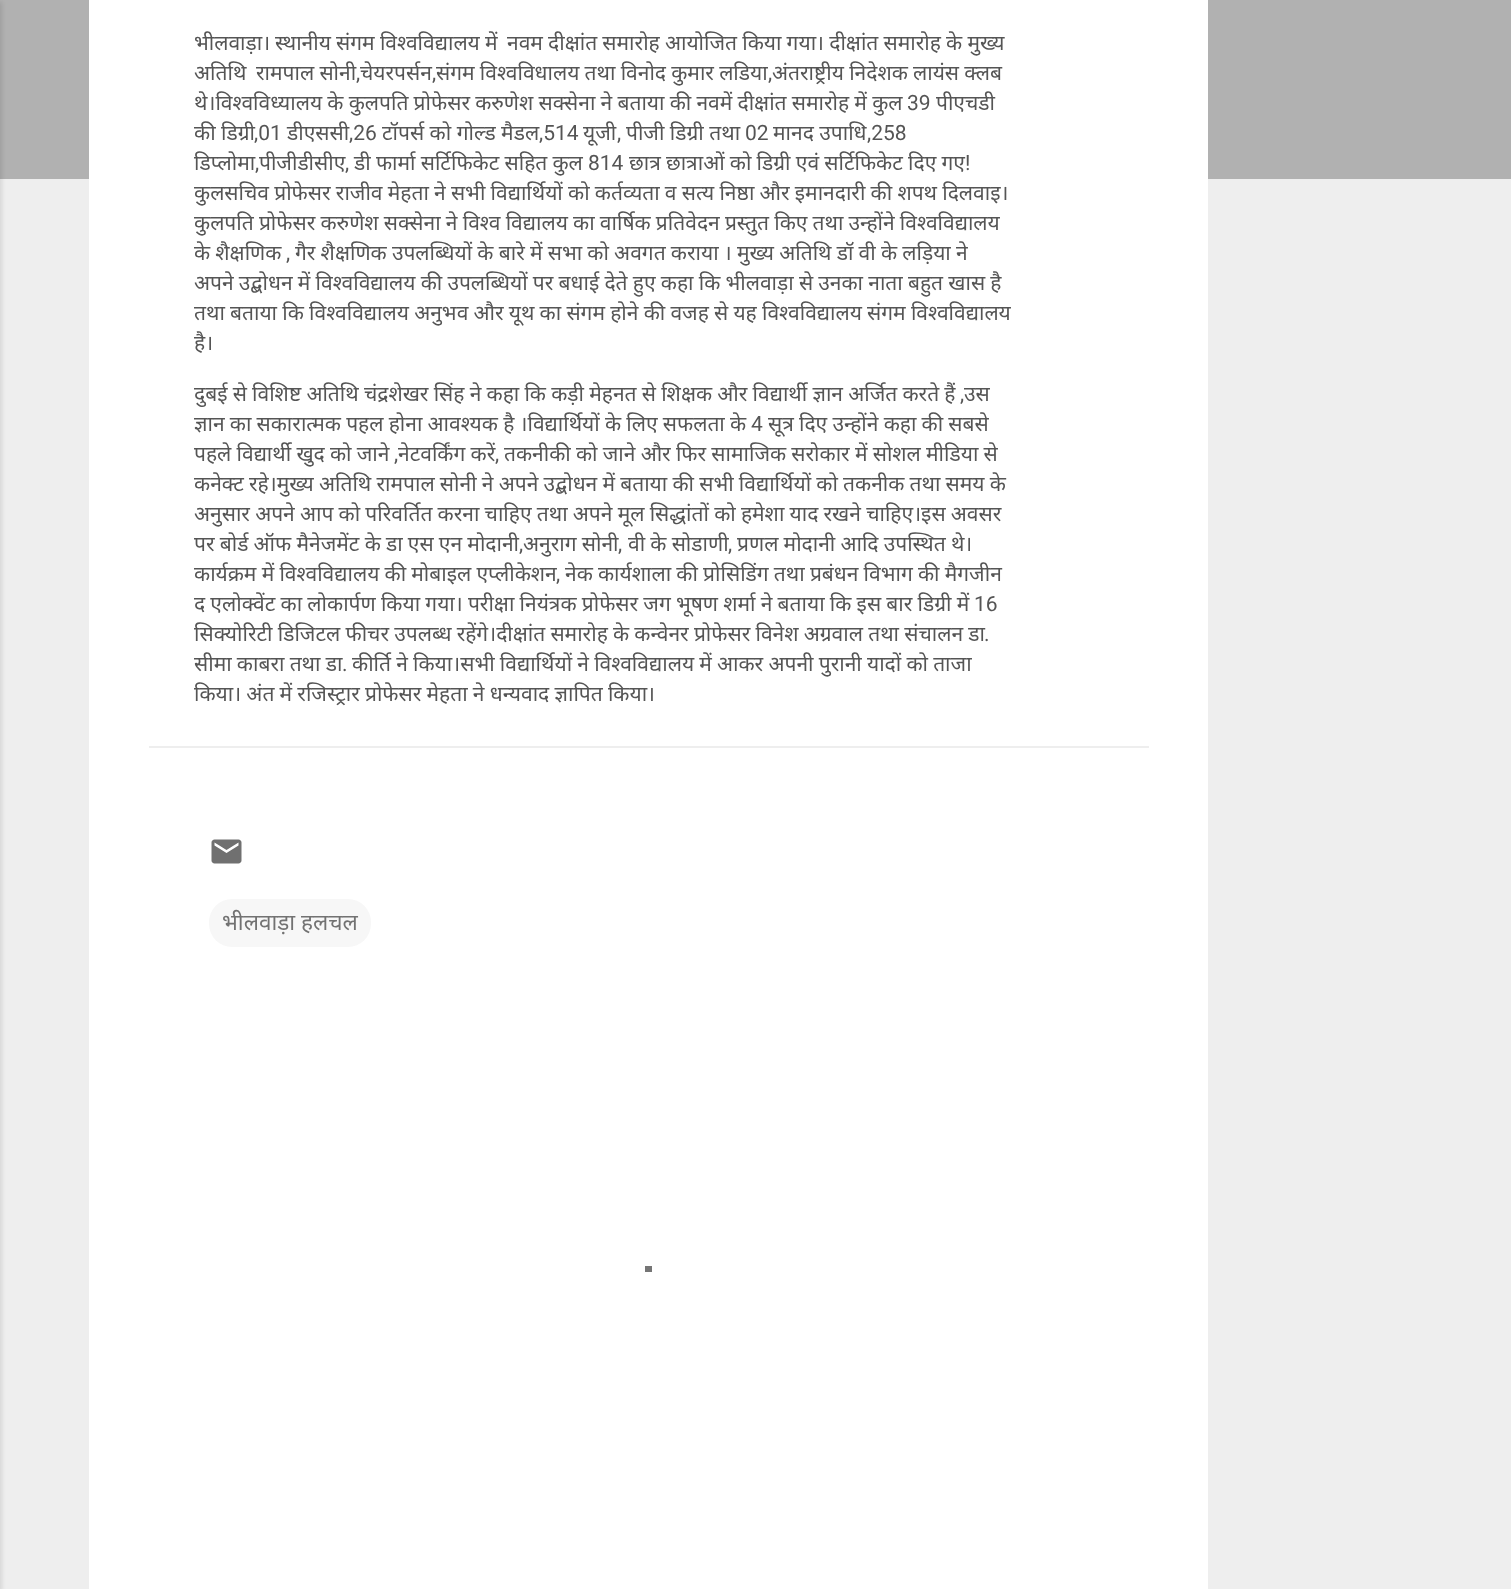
<svg xmlns="http://www.w3.org/2000/svg" width="1511" height="1589" viewBox="0 0 1511 1589">
  <rect width="100%" height="100%" fill="rgb(238,238,238)"/>
  <rect x="0" y="0" width="1511" height="179" fill="rgb(177,177,177)"/>
  <rect x="-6" y="2" width="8" height="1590" fill="rgba(0,0,0,0.1)" filter="blur(2px)"/>
  <rect x="89" y="0" width="1119" height="1589" fill="rgb(255,255,255)"/>
  <g font-family="Noto Sans" font-size="21" fill="rgb(85,85,85)">
    <text x="194" y="50">भीलवाड़ा।</text>
    <text x="275" y="50" word-spacing="-0.25">स्थानीय संगम विश्वविद्यालय में</text>
    <text x="507" y="50" word-spacing="-0.25">नवम दीक्षांत समारोह आयोजित किया गया। दीक्षांत समारोह के मुख्य</text>
    <text x="194" y="80">अतिथि</text>
    <text x="256" y="80" word-spacing="-0.25">रामपाल सोनी</text>
  </g>
  <text x="356" y="80" font-family="Roboto" font-size="21" fill="rgb(85,85,85)">,</text>
  <text x="360" y="80" font-family="Noto Sans" font-size="21" fill="rgb(85,85,85)">चेयरपर्सन</text>
  <text x="432" y="80" font-family="Roboto" font-size="21" fill="rgb(85,85,85)">,</text>
  <text x="436" y="80" word-spacing="-0.25" font-family="Noto Sans" font-size="21" fill="rgb(85,85,85)">संगम विश्वविधालय तथा विनोद कुमार लडिया</text>
  <text x="768" y="80" font-family="Roboto" font-size="21" fill="rgb(85,85,85)">,</text>
  <g font-family="Noto Sans" font-size="21" fill="rgb(85,85,85)">
    <text x="772" y="80" word-spacing="-0.25">अंतराष्ट्रीय निदेशक लायंस क्लब</text>
    <text x="194" y="110" word-spacing="-0.25">थे।विश्वविध्यालय के कुलपति प्रोफेसर करुणेश सक्सेना ने बताया की नवमें दीक्षांत समारोह में कुल</text>
  </g>
  <text x="907" y="110" font-family="Roboto" font-size="21" fill="rgb(85,85,85)">39</text>
  <g font-family="Noto Sans" font-size="21" fill="rgb(85,85,85)">
    <text x="936" y="110">पीएचडी</text>
    <text x="194" y="140">की डिग्री</text>
  </g>
  <text x="254" y="140" font-family="Roboto" font-size="21" fill="rgb(85,85,85)">,01</text>
  <text x="287" y="140" font-family="Noto Sans" font-size="21" fill="rgb(85,85,85)">डीएससी</text>
  <text x="349" y="140" font-family="Roboto" font-size="21" fill="rgb(85,85,85)">,26</text>
  <text x="382" y="140" font-family="Noto Sans" font-size="21" fill="rgb(85,85,85)">टॉपर्स को गोल्ड मैडल</text>
  <text x="539" y="140" font-family="Roboto" font-size="21" fill="rgb(85,85,85)">,514</text>
  <text x="583" y="140" font-family="Noto Sans" font-size="21" fill="rgb(85,85,85)">यूजी</text>
  <text x="617" y="140" font-family="Roboto" font-size="21" fill="rgb(85,85,85)">,</text>
  <text x="626" y="140" font-family="Noto Sans" font-size="21" fill="rgb(85,85,85)">पीजी डिग्री तथा</text>
  <text x="745" y="140" font-family="Roboto" font-size="21" fill="rgb(85,85,85)">02</text>
  <text x="773" y="140" font-family="Noto Sans" font-size="21" fill="rgb(85,85,85)">मानद उपाधि</text>
  <text x="867" y="140" font-family="Roboto" font-size="21" fill="rgb(85,85,85)">,258</text>
  <text x="194" y="170" font-family="Noto Sans" font-size="21" fill="rgb(85,85,85)">डिप्लोमा</text>
  <text x="255" y="170" font-family="Roboto" font-size="21" fill="rgb(85,85,85)">,</text>
  <g font-family="Noto Sans" font-size="21" fill="rgb(85,85,85)">
    <text x="259" y="170">पीजीडीसीए</text>
    <text x="354" y="170" word-spacing="-0.25">डी फार्मा सर्टिफिकेट सहित कुल</text>
  </g>
  <text x="588" y="170" font-family="Roboto" font-size="21" fill="rgb(85,85,85)">814</text>
  <text x="629" y="170" word-spacing="-0.25" font-family="Noto Sans" font-size="21" fill="rgb(85,85,85)">छात्र छात्राओं को डिग्री एवं सर्टिफिकेट दिए गए</text>
  <g font-family="Roboto" font-size="21" fill="rgb(85,85,85)">
    <text x="965" y="170">!</text>
    <text x="345" y="170">,</text>
  </g>
  <g font-family="Noto Sans" font-size="21" fill="rgb(85,85,85)">
    <text>
      <tspan x="194" y="200" word-spacing="-0.25">कुलसचिव प्रोफेसर राजीव मेहता ने सभी विद्यार्थियों को कर्तव्यता व सत्य निष्ठा और इमानदारी की शपथ दिलवाइ।</tspan>
      <tspan x="194" y="230" word-spacing="-0.25">कुलपति प्रोफेसर करुणेश सक्सेना ने विश्व विद्यालय का वार्षिक प्रतिवेदन प्रस्तुत किए तथा उन्होंने विश्वविद्यालय</tspan>
      <tspan x="194" y="260" word-spacing="-0.25">के शैक्षणिक</tspan>
    </text>
  </g>
  <text x="286" y="260" font-family="Roboto" font-size="21" fill="rgb(85,85,85)">,</text>
  <g font-family="Noto Sans" font-size="21" fill="rgb(85,85,85)">
    <text x="295" y="260" word-spacing="-0.25">गैर शैक्षणिक उपलब्धियों के बारे में सभा को अवगत कराया । मुख्य अतिथि डॉ वी के लड़िया ने</text>
    <text>
      <tspan x="194" y="290" word-spacing="-0.25">अपने उद्बोधन में विश्वविद्यालय की उपलब्धियों पर बधाई देते हुए कहा कि भीलवाड़ा से उनका नाता बहुत खास है</tspan>
      <tspan x="194" y="320" word-spacing="-0.25">तथा बताया कि विश्वविद्यालय अनुभव और यूथ का संगम होने की वजह से यह विश्वविद्यालय संगम विश्वविद्यालय</tspan>
      <tspan x="194" y="350">है।</tspan>
    </text>
    <text x="194" y="401" word-spacing="-0.25">दुबई से विशिष्ट अतिथि चंद्रशेखर सिंह ने कहा कि कड़ी मेहनत से शिक्षक और विद्यार्थी ज्ञान अर्जित करते हैं</text>
  </g>
  <text x="960" y="401" font-family="Roboto" font-size="21" fill="rgb(85,85,85)">,</text>
  <g font-family="Noto Sans" font-size="21" fill="rgb(85,85,85)">
    <text x="964" y="401">उस</text>
    <text x="194" y="431" word-spacing="-0.25">ज्ञान का सकारात्मक पहल होना आवश्यक है ।विद्यार्थियों के लिए सफलता के</text>
  </g>
  <text x="751" y="431" font-family="Roboto" font-size="21" fill="rgb(85,85,85)">4</text>
  <g font-family="Noto Sans" font-size="21" fill="rgb(85,85,85)">
    <text x="768" y="431" word-spacing="-0.25">सूत्र दिए उन्होंने कहा की सबसे</text>
    <text x="194" y="461" word-spacing="-0.25">पहले विद्यार्थी खुद को जाने</text>
  </g>
  <text x="394" y="461" font-family="Roboto" font-size="21" fill="rgb(85,85,85)">,</text>
  <g font-family="Noto Sans" font-size="21" fill="rgb(85,85,85)">
    <text x="398" y="461" word-spacing="-0.25">नेटवर्किंग करें</text>
    <text x="504" y="461" word-spacing="-0.25">तकनीकी को जाने और फिर सामाजिक सरोकार में सोशल मीडिया से</text>
  </g>
  <text x="495" y="461" font-family="Roboto" font-size="21" fill="rgb(85,85,85)">,</text>
  <g font-family="Noto Sans" font-size="21" fill="rgb(85,85,85)">
    <text>
      <tspan x="194" y="491" word-spacing="-0.25">कनेक्ट रहे।मुख्य अतिथि रामपाल सोनी ने अपने उद्बोधन में बताया की सभी विद्यार्थियों को तकनीक तथा समय के</tspan>
      <tspan x="194" y="521" word-spacing="-0.25">अनुसार अपने आप को परिवर्तित करना चाहिए तथा अपने मूल सिद्धांतों को हमेशा याद रखने चाहिए।इस अवसर</tspan>
      <tspan x="194" y="551" word-spacing="-0.25">पर बोर्ड ऑफ मैनेजमेंट के डा एस एन मोदानी</tspan>
    </text>
  </g>
  <text x="519" y="551" font-family="Roboto" font-size="21" fill="rgb(85,85,85)">,</text>
  <text x="523" y="551" word-spacing="-0.25" font-family="Noto Sans" font-size="21" fill="rgb(85,85,85)">अनुराग सोनी</text>
  <text x="618" y="551" font-family="Roboto" font-size="21" fill="rgb(85,85,85)">,</text>
  <text x="628" y="551" word-spacing="-0.25" font-family="Noto Sans" font-size="21" fill="rgb(85,85,85)">वी के सोडाणी</text>
  <text x="728" y="551" font-family="Roboto" font-size="21" fill="rgb(85,85,85)">,</text>
  <g font-family="Noto Sans" font-size="21" fill="rgb(85,85,85)">
    <text x="737" y="551" word-spacing="-0.25">प्रणल मोदानी आदि उपस्थित थे।</text>
    <text x="194" y="581" word-spacing="-0.25">कार्यक्रम में विश्वविद्यालय की मोबाइल एप्लीकेशन</text>
  </g>
  <text x="556" y="581" font-family="Roboto" font-size="21" fill="rgb(85,85,85)">,</text>
  <g font-family="Noto Sans" font-size="21" fill="rgb(85,85,85)">
    <text x="565" y="581" word-spacing="-0.25">नेक कार्यशाला की प्रोसिडिंग तथा प्रबंधन विभाग की मैगजीन</text>
    <text x="194" y="611" word-spacing="-0.25">द एलोक्वेंट का लोकार्पण किया गया। परीक्षा नियंत्रक प्रोफेसर जग भूषण शर्मा ने बताया कि इस बार डिग्री में</text>
  </g>
  <text x="974" y="611" font-family="Roboto" font-size="21" fill="rgb(85,85,85)">16</text>
  <text x="194" y="641" word-spacing="-0.25" font-family="Noto Sans" font-size="21" fill="rgb(85,85,85)">सिक्योरिटी डिजिटल फीचर उपलब्ध रहेंगे।दीक्षांत समारोह के कन्वेनर प्रोफेसर विनेश अग्रवाल तथा संचालन डा</text>
  <text x="984" y="641" font-family="Roboto" font-size="21" fill="rgb(85,85,85)">.</text>
  <text x="194" y="671" word-spacing="-0.25" font-family="Noto Sans" font-size="21" fill="rgb(85,85,85)">सीमा काबरा तथा डा</text>
  <text x="342" y="671" font-family="Roboto" font-size="21" fill="rgb(85,85,85)">.</text>
  <g font-family="Noto Sans" font-size="21" fill="rgb(85,85,85)">
    <text x="352" y="671" word-spacing="-0.25">कीर्ति ने किया।सभी विद्यार्थियों ने विश्वविद्यालय में आकर अपनी पुरानी यादों को ताजा</text>
    <text x="194" y="701" word-spacing="-0.25">किया। अंत में रजिस्ट्रार प्रोफेसर मेहता ने धन्यवाद ज्ञापित किया।</text>
  </g>
  <rect x="149" y="746" width="1000" height="2" fill="rgb(238,238,238)"/>
  <image x="211" y="839" width="31" height="25" href="pic1.png"/>
  <rect x="209" y="899" width="162" height="48" rx="23" fill="rgb(247,247,247)"/>
  <text x="222" y="930" font-family="Noto Sans" font-size="22.5" fill="rgb(114,114,114)">भीलवाड़ा हलचल</text>
  <rect x="645" y="1266" width="7" height="6" fill="rgb(117,117,117)"/>
</svg>
